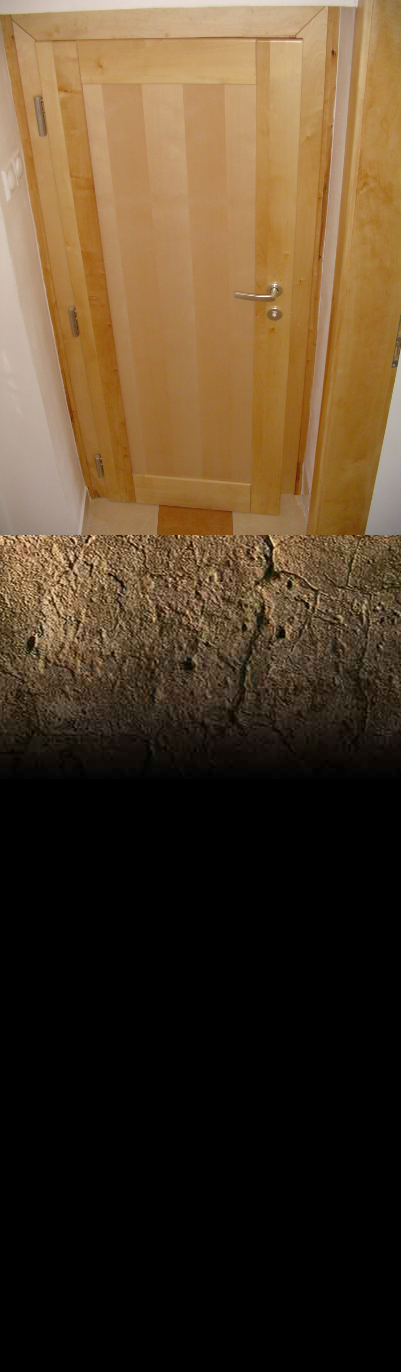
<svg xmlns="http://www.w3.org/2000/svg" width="401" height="1372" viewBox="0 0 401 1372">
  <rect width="100%" height="100%" fill="rgb(0,0,0)"/>
  <image x="0" y="535" width="401" height="244" href="pic1.png"/>
  <image x="0" y="0" width="401" height="535" href="pic2.png"/>
</svg>
